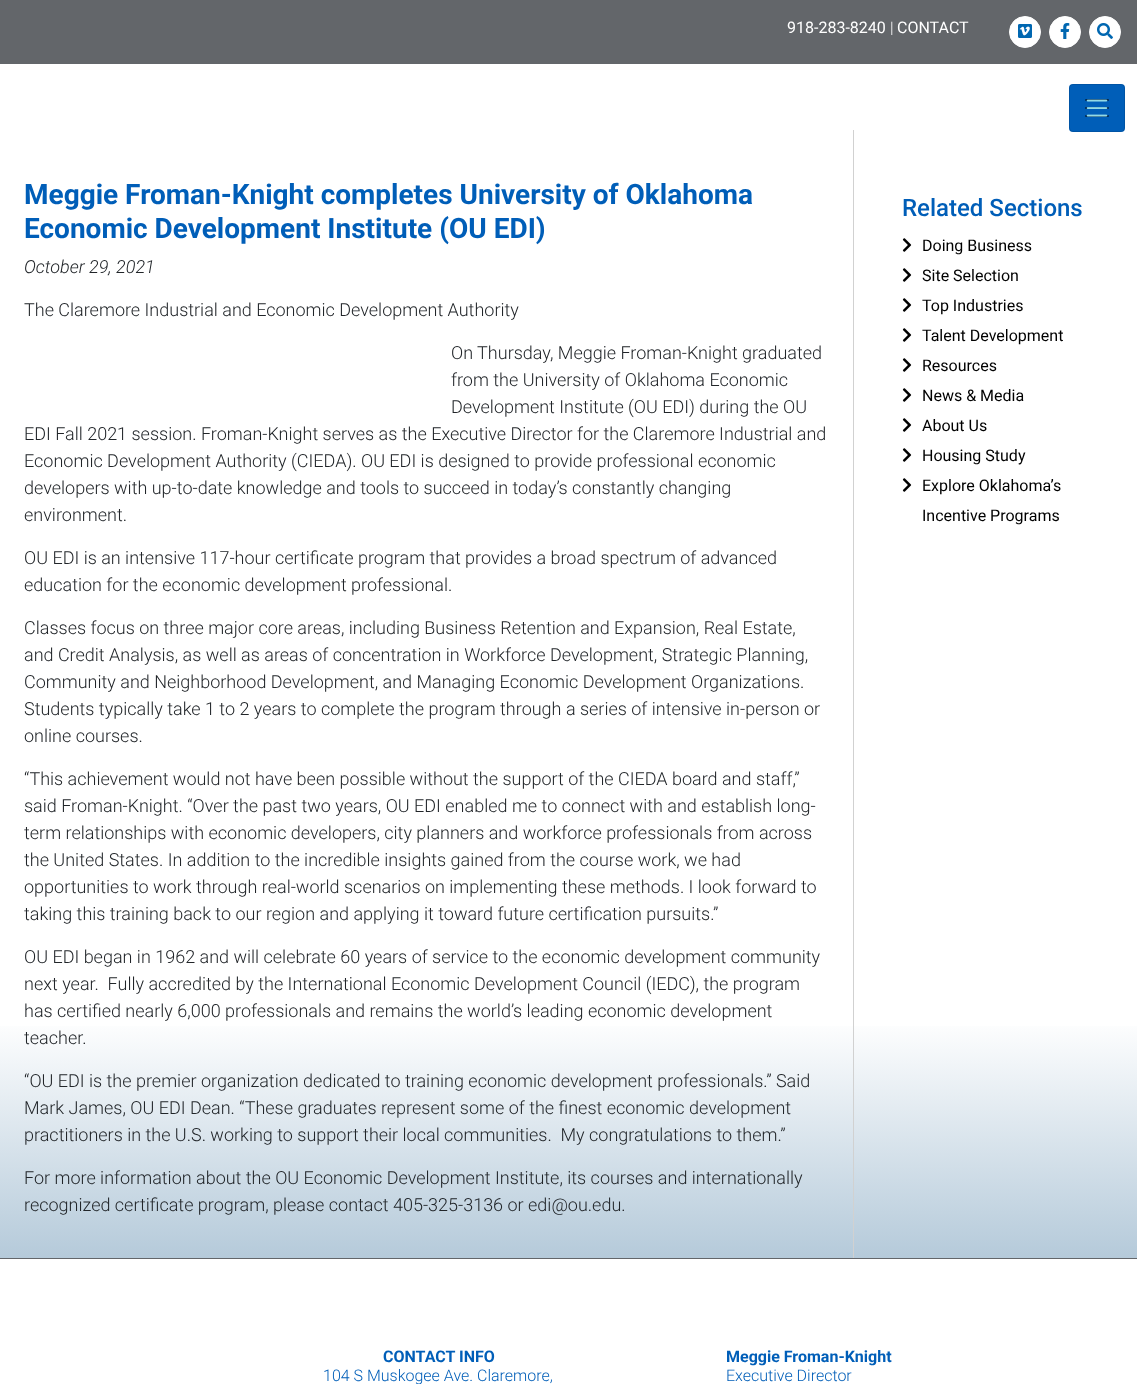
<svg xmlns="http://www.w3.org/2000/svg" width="1137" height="1384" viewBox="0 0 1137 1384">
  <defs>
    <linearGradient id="g1" gradientUnits="userSpaceOnUse" x1="569" y1="658" x2="569" y2="1258"><stop offset="0.6" stop-color="rgb(255,255,255)"/><stop offset="1" stop-color="rgb(181,202,218)"/></linearGradient>
  </defs>
  <rect width="100%" height="100%" fill="rgb(255,255,255)"/>
  <rect x="0" y="0" width="1137" height="64" fill="rgb(99,102,106)"/>
  <text x="787" y="33" font-family="Roboto" font-size="16" fill="rgb(255,255,255)">918-283-8240</text>
  <text x="890" y="33" font-family="Roboto" font-size="16" font-weight="300" fill="rgb(255,255,255)">|</text>
  <text x="897" y="33" font-family="Roboto" font-size="16" fill="rgb(255,255,255)">CONTACT</text>
  <circle cx="1025" cy="32" r="15.5" fill="rgb(255,255,255)" stroke="rgb(255,255,255)"/>
  <image x="1018" y="24" width="14" height="14" href="pic1.png"/>
  <circle cx="1065" cy="32" r="15.5" fill="rgb(255,255,255)" stroke="rgb(255,255,255)"/>
  <image x="1060" y="23" width="10" height="16" href="pic2.png"/>
  <circle cx="1105" cy="32" r="15.5" fill="rgb(255,255,255)" stroke="rgb(255,255,255)"/>
  <image x="1097" y="23" width="16" height="16" href="pic3.png"/>
  <rect x="1069" y="84" width="56" height="48" rx="4" fill="rgb(0,94,184)"/>
  <rect x="1069.5" y="84.5" width="55" height="47" rx="3.5" fill="none" stroke="rgba(0,0,0,0.1)"/>
  <image x="1085" y="99" width="24" height="18" href="pic4.png"/>
  <image x="1086" y="99" width="22" height="18" href="pic5.png"/>
  <g font-family="Roboto" font-size="28" font-weight="bold" fill="rgb(0,94,184)">
    <text>
      <tspan x="24" y="204">Meggie Froman-Knight completes University of Oklahoma</tspan>
      <tspan x="24" y="238">Economic Development Institute (OU EDI)</tspan>
    </text>
  </g>
  <text x="24" y="273" font-family="Roboto" font-size="18" font-weight="300" font-style="italic" fill="rgb(33,37,41)">October 29, 2021</text>
  <g font-family="Roboto" font-size="18" font-weight="300" fill="rgb(33,37,41)">
    <text x="24" y="316">The Claremore Industrial and Economic Development Authority</text>
    <text>
      <tspan x="451" y="359">On Thursday, Meggie Froman-Knight graduated</tspan>
      <tspan x="451" y="386">from the University of Oklahoma Economic</tspan>
      <tspan x="451" y="413">Development Institute (OU EDI) during the OU</tspan>
    </text>
    <text>
      <tspan x="24" y="440">EDI Fall 2021 session. Froman-Knight serves as the Executive Director for the Claremore Industrial and</tspan>
      <tspan x="24" y="467">Economic Development Authority (CIEDA). OU EDI is designed to provide professional economic</tspan>
      <tspan x="24" y="494">developers with up-to-date knowledge and tools to succeed in today’s constantly changing</tspan>
      <tspan x="24" y="521">environment.</tspan>
    </text>
    <text>
      <tspan x="24" y="564">OU EDI is an intensive 117-hour certificate program that provides a broad spectrum of advanced</tspan>
      <tspan x="24" y="591">education for the economic development professional.</tspan>
    </text>
    <text>
      <tspan x="24" y="634">Classes focus on three major core areas, including Business Retention and Expansion, Real Estate,</tspan>
      <tspan x="24" y="661">and Credit Analysis, as well as areas of concentration in Workforce Development, Strategic Planning,</tspan>
      <tspan x="24" y="688">Community and Neighborhood Development, and Managing Economic Development Organizations.</tspan>
      <tspan x="24" y="715">Students typically take 1 to 2 years to complete the program through a series of intensive in-person or</tspan>
      <tspan x="24" y="742">online courses.</tspan>
    </text>
    <text>
      <tspan x="24" y="785">“This achievement would not have been possible without the support of the CIEDA board and staff,”</tspan>
      <tspan x="24" y="812">said Froman-Knight. “Over the past two years, OU EDI enabled me to connect with and establish long-</tspan>
      <tspan x="24" y="839">term relationships with economic developers, city planners and workforce professionals from across</tspan>
      <tspan x="24" y="866">the United States. In addition to the incredible insights gained from the course work, we had</tspan>
      <tspan x="24" y="893">opportunities to work through real-world scenarios on implementing these methods. I look forward to</tspan>
      <tspan x="24" y="920">taking this training back to our region and applying it toward future certification pursuits.”</tspan>
    </text>
    <text xml:space="preserve"><tspan x="24" y="963">OU EDI began in 1962 and will celebrate 60 years of service to the economic development community</tspan><tspan x="24" y="990">next year.  Fully accredited by the International Economic Development Council (IEDC), the program</tspan><tspan x="24" y="1017">has certified nearly 6,000 professionals and remains the world’s leading economic development</tspan></text>
  </g>
  <rect x="0" y="1026" width="1137" height="232" fill="url(#g1)"/>
  <g font-family="Roboto" font-size="18" font-weight="300" fill="rgb(33,37,41)">
    <text x="24" y="1044">teacher.</text>
    <text xml:space="preserve"><tspan x="24" y="1087">“OU EDI is the premier organization dedicated to training economic development professionals.” Said</tspan><tspan x="24" y="1114">Mark James, OU EDI Dean. “These graduates represent some of the finest economic development</tspan><tspan x="24" y="1141">practitioners in the U.S. working to support their local communities.  My congratulations to them.”</tspan></text>
    <text>
      <tspan x="24" y="1184">For more information about the OU Economic Development Institute, its courses and internationally</tspan>
      <tspan x="24" y="1211">recognized certificate program, please contact 405-325-3136 or edi@ou.edu.</tspan>
    </text>
  </g>
  <rect x="853" y="130" width="1" height="1128" fill="rgb(209,209,209)"/>
  <text x="902" y="216" font-family="Roboto" font-size="24" font-weight="500" fill="rgb(0,94,184)">Related Sections</text>
  <image x="902" y="238" width="10" height="14" href="pic6.png"/>
  <text x="922" y="251" font-family="Roboto" font-size="16" fill="rgb(0,0,0)">Doing Business</text>
  <image x="902" y="268" width="10" height="14" href="pic6.png"/>
  <text x="922" y="281" font-family="Roboto" font-size="16" fill="rgb(0,0,0)">Site Selection</text>
  <image x="902" y="298" width="10" height="14" href="pic6.png"/>
  <text x="922" y="311" font-family="Roboto" font-size="16" fill="rgb(0,0,0)">Top Industries</text>
  <image x="902" y="328" width="10" height="14" href="pic6.png"/>
  <text x="922" y="341" font-family="Roboto" font-size="16" fill="rgb(0,0,0)">Talent Development</text>
  <image x="902" y="358" width="10" height="14" href="pic6.png"/>
  <text x="922" y="371" font-family="Roboto" font-size="16" fill="rgb(0,0,0)">Resources</text>
  <image x="902" y="388" width="10" height="14" href="pic6.png"/>
  <text x="922" y="401" font-family="Roboto" font-size="16" fill="rgb(0,0,0)">News &amp; Media</text>
  <image x="902" y="418" width="10" height="14" href="pic6.png"/>
  <text x="922" y="431" font-family="Roboto" font-size="16" fill="rgb(0,0,0)">About Us</text>
  <image x="902" y="448" width="10" height="14" href="pic6.png"/>
  <text x="922" y="461" font-family="Roboto" font-size="16" fill="rgb(0,0,0)">Housing Study</text>
  <image x="902" y="478" width="10" height="14" href="pic6.png"/>
  <g font-family="Roboto" font-size="16" fill="rgb(0,0,0)">
    <text>
      <tspan x="922" y="491">Explore Oklahoma’s</tspan>
      <tspan x="922" y="521">Incentive Programs</tspan>
    </text>
  </g>
  <rect x="0" y="1258" width="1137" height="1" fill="rgb(99,102,106)"/>
  <text x="383" y="1362" font-family="Roboto" font-size="16" font-weight="bold" fill="rgb(0,94,184)">CONTACT INFO</text>
  <text x="323" y="1381" font-family="Roboto" font-size="16" font-weight="300" fill="rgb(0,94,184)">104 S Muskogee Ave. Claremore,</text>
  <text x="726" y="1362" font-family="Roboto" font-size="16" font-weight="bold" fill="rgb(0,94,184)">Meggie Froman-Knight</text>
  <text x="726" y="1381" font-family="Roboto" font-size="16" font-weight="300" fill="rgb(0,94,184)">Executive Director</text>
</svg>
